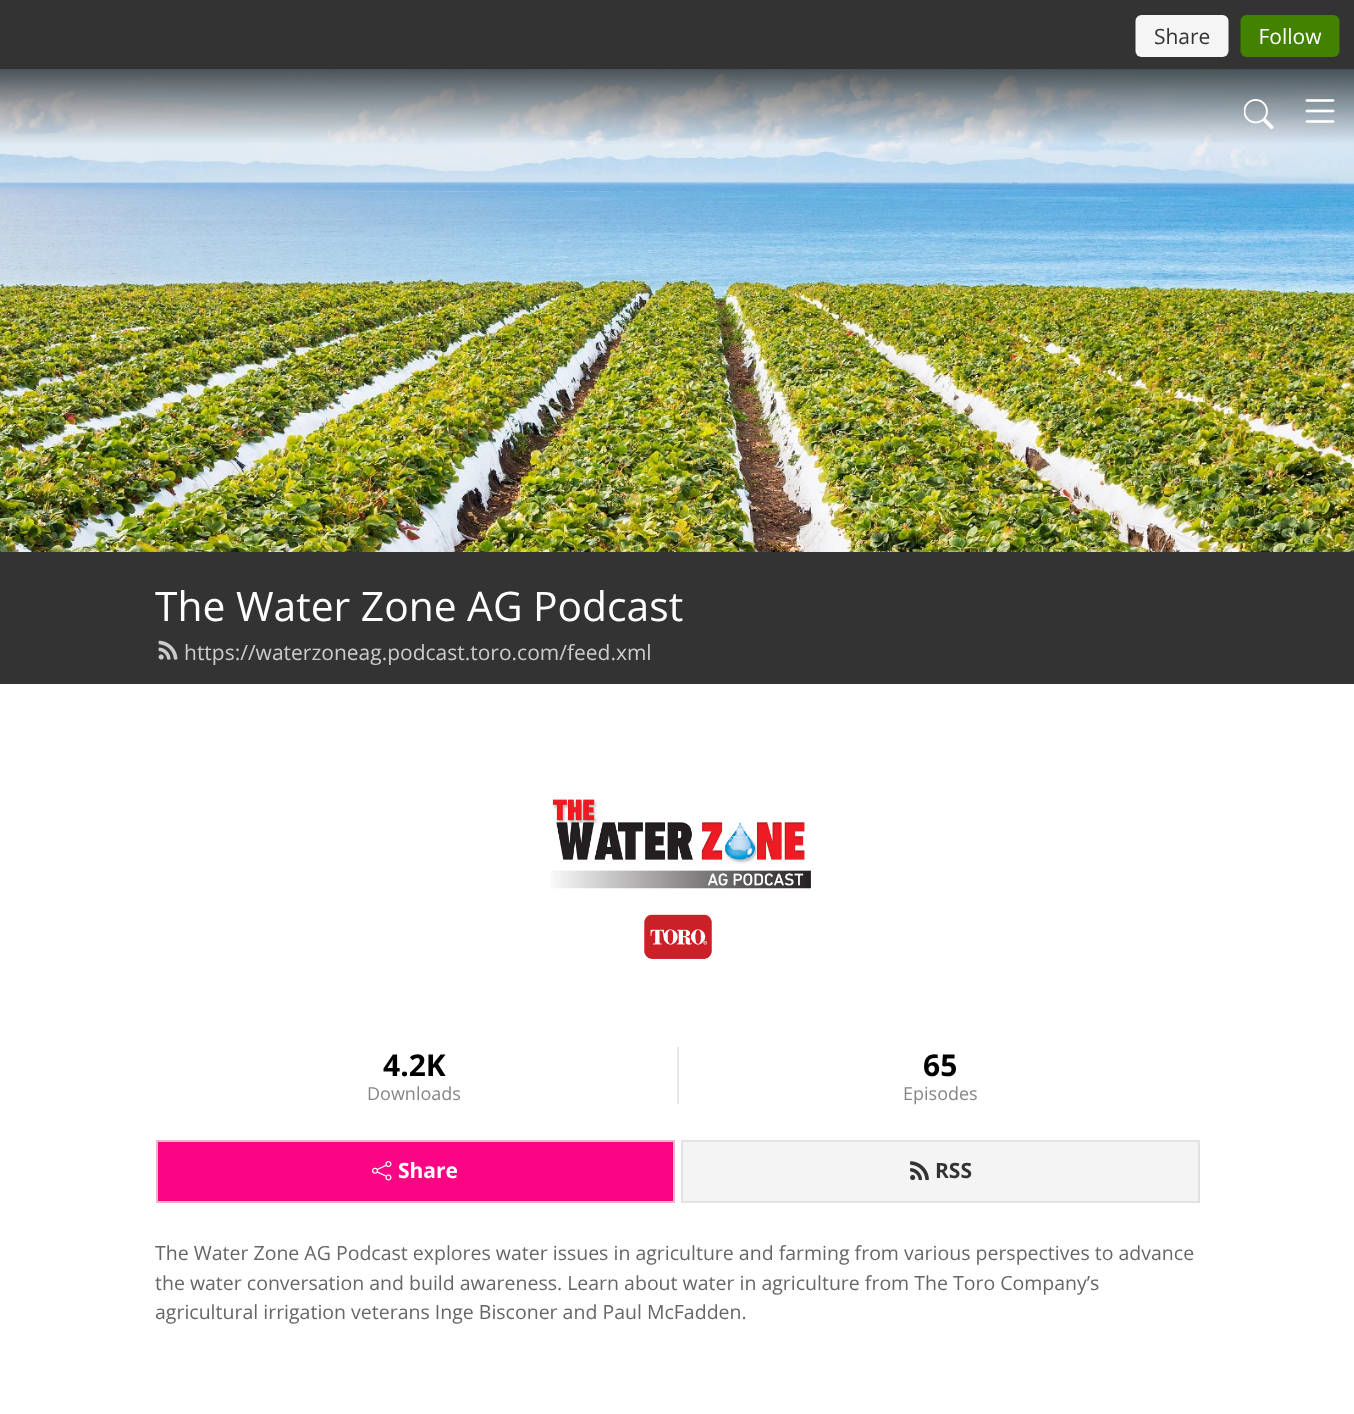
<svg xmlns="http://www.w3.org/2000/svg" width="1354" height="1414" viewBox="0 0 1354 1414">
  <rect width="100%" height="100%" fill="rgb(255,255,255)"/>
  <rect x="0" y="0" width="1354" height="69" fill="rgb(51,51,51)"/>
  <image x="1135" y="15" width="205" height="42" href="pic1.png"/>
  <image x="0" y="69" width="1354" height="483" href="pic4.png"/>
  <image x="1244" y="99" width="30" height="30" href="pic2.png"/>
  <image x="1305" y="99" width="30" height="24" href="pic3.png"/>
  <rect x="0" y="552" width="1354" height="132" fill="rgb(51,51,51)"/>
  <text x="155" y="621" font-family="Open Sans" font-size="40.75" fill="rgb(255,255,255)">The Water Zone AG Podcast</text>
  <image x="158" y="640" width="20" height="20" href="pic5.png"/>
  <text x="184" y="660" font-family="Open Sans" font-size="21" fill="rgb(204,204,204)">https://waterzoneag.podcast.toro.com/feed.xml</text>
  <image x="550" y="799" width="261" height="160" href="pic6.png"/>
  <text x="383" y="1076" font-family="Open Sans" font-size="30" font-weight="bold" fill="rgb(0,0,0)">4.2K</text>
  <text x="367" y="1100" font-family="Open Sans" font-size="18" fill="rgb(134,134,134)">Downloads</text>
  <rect x="677" y="1047" width="2" height="57" fill="rgb(230,230,230)"/>
  <text x="923" y="1076" font-family="Open Sans" font-size="30" font-weight="bold" fill="rgb(0,0,0)">65</text>
  <text x="903" y="1100" font-family="Open Sans" font-size="18" fill="rgb(134,134,134)">Episodes</text>
  <rect x="157" y="1141" width="517" height="61" fill="rgb(251,5,132)" stroke="rgb(231,182,207)" stroke-width="2"/>
  <image x="372" y="1161" width="20" height="20" href="pic7.png"/>
  <text x="398" y="1178" font-family="Open Sans" font-size="21" font-weight="bold" fill="rgb(255,255,255)">Share</text>
  <rect x="682" y="1141" width="517" height="61" fill="rgb(244,244,244)" stroke="rgb(226,226,226)" stroke-width="2"/>
  <image x="910" y="1161" width="19" height="20" href="pic8.png"/>
  <text x="935" y="1178" font-family="Open Sans" font-size="21" font-weight="bold" fill="rgb(51,51,51)">RSS</text>
  <g font-family="Open Sans" font-size="19.5" fill="rgb(100,102,105)">
    <text>
      <tspan x="155" y="1260">The Water Zone AG Podcast explores water issues in agriculture and farming from various perspectives to advance</tspan>
      <tspan x="155" y="1290">the water conversation and build awareness. Learn about water in agriculture from The Toro Company’s</tspan>
      <tspan x="155" y="1319">agricultural irrigation veterans Inge Bisconer and Paul McFadden.</tspan>
    </text>
  </g>
</svg>
